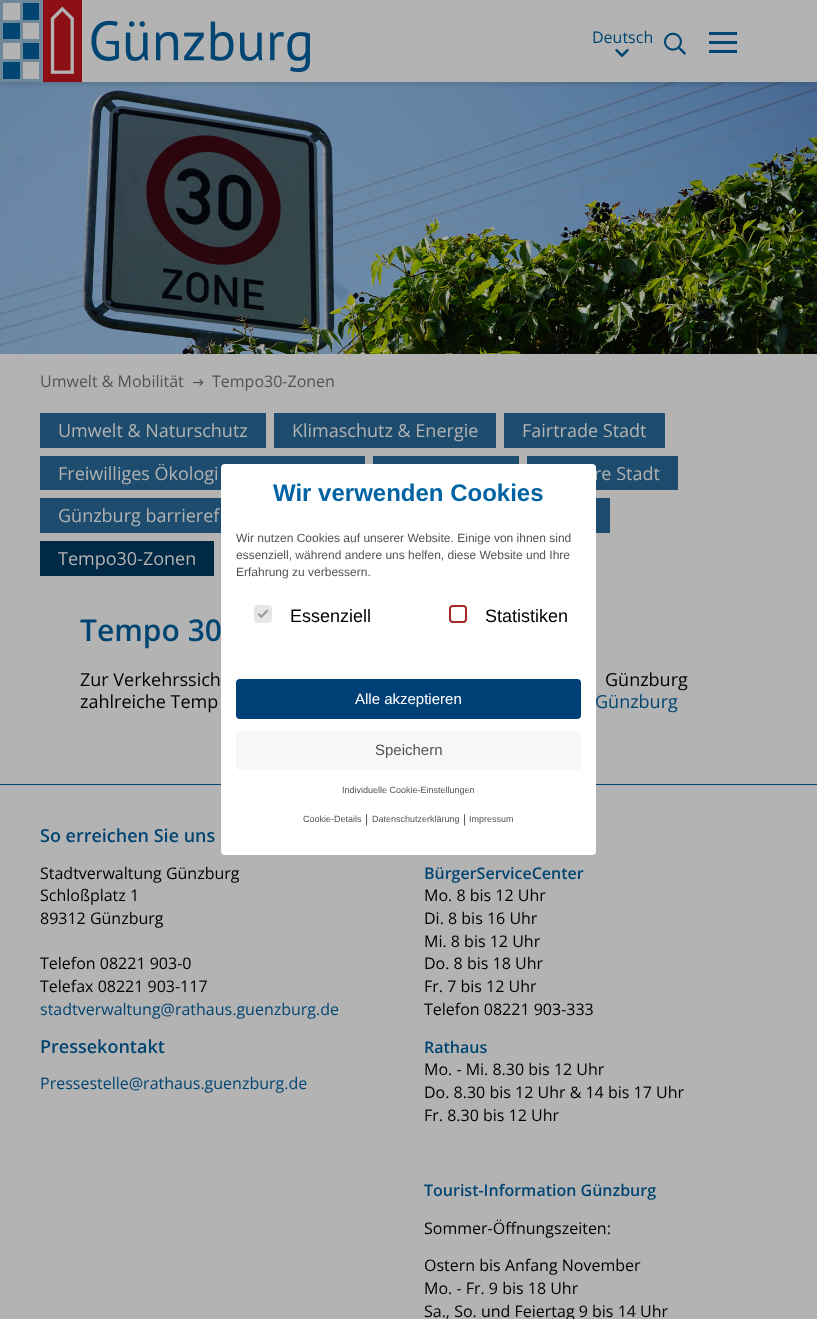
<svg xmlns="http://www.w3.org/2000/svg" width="817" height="1319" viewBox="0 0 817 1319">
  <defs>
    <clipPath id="clip1"><rect x="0" y="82" width="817" height="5"/></clipPath>
  </defs>
  <rect width="100%" height="100%" fill="rgb(179,179,179)"/>
  <image x="0" y="82" width="817" height="272" href="pic4.png"/>
  <g clip-path="url(#clip1)">
    <rect x="0" y="0" width="817" height="82" fill="rgba(0,0,0,0.2)" filter="blur(4px)"/>
  </g>
  <image x="0" y="0" width="310" height="82" href="pic1.png"/>
  <text x="592" y="43" font-family="Open Sans" font-size="16" fill="rgb(0,69,114)">Deutsch</text>
  <image x="664" y="32" width="22" height="23" href="pic2.png"/>
  <rect x="709" y="41" width="28" height="3" fill="rgb(0,69,114)"/>
  <rect x="709" y="32" width="28" height="3" fill="rgb(0,69,114)"/>
  <rect x="709" y="50" width="28" height="3" fill="rgb(0,69,114)"/>
  <image x="615" y="48" width="14" height="10" href="pic3.png"/>
  <text x="40" y="387" font-family="Open Sans" font-size="16" fill="rgb(82,83,83)">Umwelt &amp; Mobilität</text>
  <image x="193" y="379" width="11" height="7" href="pic5.png"/>
  <text x="212" y="387" font-family="Open Sans" font-size="16" fill="rgb(82,83,83)">Tempo30-Zonen</text>
  <rect x="40" y="413" width="226" height="35" fill="rgb(29,76,110)"/>
  <text x="58" y="437" font-family="Open Sans" font-size="18" fill="rgb(179,179,179)">Umwelt &amp; Naturschutz</text>
  <rect x="274" y="413" width="222" height="35" fill="rgb(29,76,110)"/>
  <text x="292" y="437" font-family="Open Sans" font-size="18" fill="rgb(179,179,179)">Klimaschutz &amp; Energie</text>
  <rect x="504" y="413" width="161" height="35" fill="rgb(29,76,110)"/>
  <text x="522" y="437" font-family="Open Sans" font-size="18" fill="rgb(179,179,179)">Fairtrade Stadt</text>
  <rect x="373" y="456" width="146" height="8" fill="rgb(29,76,110)"/>
  <rect x="40" y="456" width="325" height="34" fill="rgb(29,76,110)"/>
  <text x="58" y="480" font-family="Open Sans" font-size="18" fill="rgb(179,179,179)">Freiwilliges Ökologi</text>
  <rect x="527" y="456" width="151" height="34" fill="rgb(29,76,110)"/>
  <text x="594" y="480" font-family="Open Sans" font-size="18" fill="rgb(179,179,179)">re Stadt</text>
  <rect x="40" y="498" width="181" height="35" fill="rgb(29,76,110)"/>
  <text x="58" y="522" font-family="Open Sans" font-size="18" fill="rgb(179,179,179)">Günzburg barrieref</text>
  <rect x="596" y="498" width="14" height="35" fill="rgb(29,76,110)"/>
  <rect x="40" y="541" width="174" height="35" fill="rgb(0,41,69)"/>
  <text x="58" y="565" font-family="Open Sans" font-size="18" fill="rgb(179,179,179)">Tempo30-Zonen</text>
  <text x="80" y="641" font-family="Open Sans" font-size="30" font-weight="600" fill="rgb(0,69,114)">Tempo 30</text>
  <g font-family="Open Sans" font-size="18" fill="rgb(0,0,0)">
    <text x="80" y="686">Zur Verkehrssich</text>
    <text x="605" y="686">Günzburg</text>
    <text x="80" y="708">zahlreiche Temp</text>
  </g>
  <text x="595" y="708" font-family="Open Sans" font-size="18" fill="rgb(0,69,114)">Günzburg</text>
  <rect x="0" y="784" width="817" height="1" fill="rgb(0,69,114)"/>
  <text x="40" y="842" font-family="Open Sans" font-size="18" font-weight="600" fill="rgb(0,69,114)">So erreichen Sie uns</text>
  <g font-family="Open Sans" font-size="16" fill="rgb(0,0,0)">
    <text>
      <tspan x="40" y="879">Stadtverwaltung Günzburg</tspan>
      <tspan x="40" y="901">Schloßplatz 1</tspan>
      <tspan x="40" y="924">89312 Günzburg</tspan>
    </text>
    <text>
      <tspan x="40" y="969">Telefon 08221 903-0</tspan>
      <tspan x="40" y="992">Telefax 08221 903-117</tspan>
    </text>
  </g>
  <text x="40" y="1015" font-family="Open Sans" font-size="16" fill="rgb(0,69,114)">stadtverwaltung@rathaus.guenzburg.de</text>
  <text x="40" y="1053" font-family="Open Sans" font-size="18" font-weight="600" fill="rgb(0,69,114)">Pressekontakt</text>
  <text x="40" y="1089" font-family="Open Sans" font-size="16" fill="rgb(0,69,114)">Pressestelle@rathaus.guenzburg.de</text>
  <text x="424" y="879" font-family="Open Sans" font-size="16" font-weight="600" fill="rgb(0,69,114)">BürgerServiceCenter</text>
  <g font-family="Open Sans" font-size="16" fill="rgb(0,0,0)">
    <text>
      <tspan x="424" y="901">Mo. 8 bis 12 Uhr</tspan>
      <tspan x="424" y="924">Di. 8 bis 16 Uhr</tspan>
      <tspan x="424" y="947">Mi. 8 bis 12 Uhr</tspan>
      <tspan x="424" y="969">Do. 8 bis 18 Uhr</tspan>
      <tspan x="424" y="992">Fr. 7 bis 12 Uhr</tspan>
      <tspan x="424" y="1015">Telefon 08221 903-333</tspan>
    </text>
  </g>
  <text x="424" y="1053" font-family="Open Sans" font-size="16" font-weight="600" fill="rgb(0,69,114)">Rathaus</text>
  <g font-family="Open Sans" font-size="16" fill="rgb(0,0,0)">
    <text>
      <tspan x="424" y="1075">Mo. - Mi. 8.30 bis 12 Uhr</tspan>
      <tspan x="424" y="1098">Do. 8.30 bis 12 Uhr &amp; 14 bis 17 Uhr</tspan>
      <tspan x="424" y="1121">Fr. 8.30 bis 12 Uhr</tspan>
    </text>
  </g>
  <text x="424" y="1196" font-family="Open Sans" font-size="16" font-weight="600" fill="rgb(0,69,114)">Tourist-Information Günzburg</text>
  <g font-family="Open Sans" font-size="16" fill="rgb(0,0,0)">
    <text x="424" y="1234">Sommer-Öffnungszeiten:</text>
    <text>
      <tspan x="424" y="1271">Ostern bis Anfang November</tspan>
      <tspan x="424" y="1294">Mo. - Fr. 9 bis 18 Uhr</tspan>
      <tspan x="424" y="1317">Sa., So. und Feiertag 9 bis 14 Uhr</tspan>
    </text>
  </g>
  <rect x="221" y="464" width="375" height="391" rx="4" fill="rgb(255,255,255)"/>
  <text x="273" y="501" font-family="Liberation Sans" font-size="24" font-weight="bold" fill="rgb(0,99,163)">Wir verwenden Cookies</text>
  <g font-family="Liberation Sans" font-size="12" fill="rgb(82,83,83)">
    <text>
      <tspan x="236" y="542">Wir nutzen Cookies auf unserer Website. Einige von ihnen sind</tspan>
      <tspan x="236" y="559">essenziell, während andere uns helfen, diese Website und Ihre</tspan>
      <tspan x="236" y="576">Erfahrung zu verbessern.</tspan>
    </text>
  </g>
  <rect x="255" y="606" width="16" height="16" rx="3" fill="rgb(230,230,230)" stroke="rgb(230,230,230)" stroke-width="2"/>
  <path d="M267 609.5L268.5 611L261.5 618L260 616.5Z" fill="rgb(153,153,153)"/>
  <path d="M259 613L262.5 616.5L261 618L257.5 614.5Z" fill="rgb(153,153,153)"/>
  <text x="290" y="622" font-family="Liberation Sans" font-size="18" fill="rgb(0,0,0)">Essenziell</text>
  <rect x="450" y="606" width="16" height="16" rx="3" fill="none" stroke="rgb(167,40,40)" stroke-width="2"/>
  <text x="485" y="622" font-family="Liberation Sans" font-size="18" fill="rgb(0,0,0)">Statistiken</text>
  <rect x="236" y="679" width="345" height="40" rx="4" fill="rgb(0,64,119)"/>
  <text x="355" y="704" font-family="Liberation Sans" font-size="15" fill="rgb(255,255,255)">Alle akzeptieren</text>
  <rect x="236" y="731" width="345" height="39" rx="4" fill="rgb(247,247,247)"/>
  <text x="375" y="755" font-family="Liberation Sans" font-size="15" fill="rgb(82,83,83)">Speichern</text>
  <g font-family="Liberation Sans" font-size="9" fill="rgb(82,83,83)">
    <text x="342" y="793">Individuelle Cookie-Einstellungen</text>
    <text x="303" y="822">Cookie-Details</text>
  </g>
  <text x="365" y="823" font-family="Liberation Sans" font-size="12" fill="rgb(82,83,83)">|</text>
  <text x="372" y="822" font-family="Liberation Sans" font-size="9" fill="rgb(82,83,83)">Datenschutzerklärung</text>
  <text x="463" y="823" font-family="Liberation Sans" font-size="12" fill="rgb(82,83,83)">|</text>
  <text x="469" y="822" font-family="Liberation Sans" font-size="9" fill="rgb(82,83,83)">Impressum</text>
</svg>
